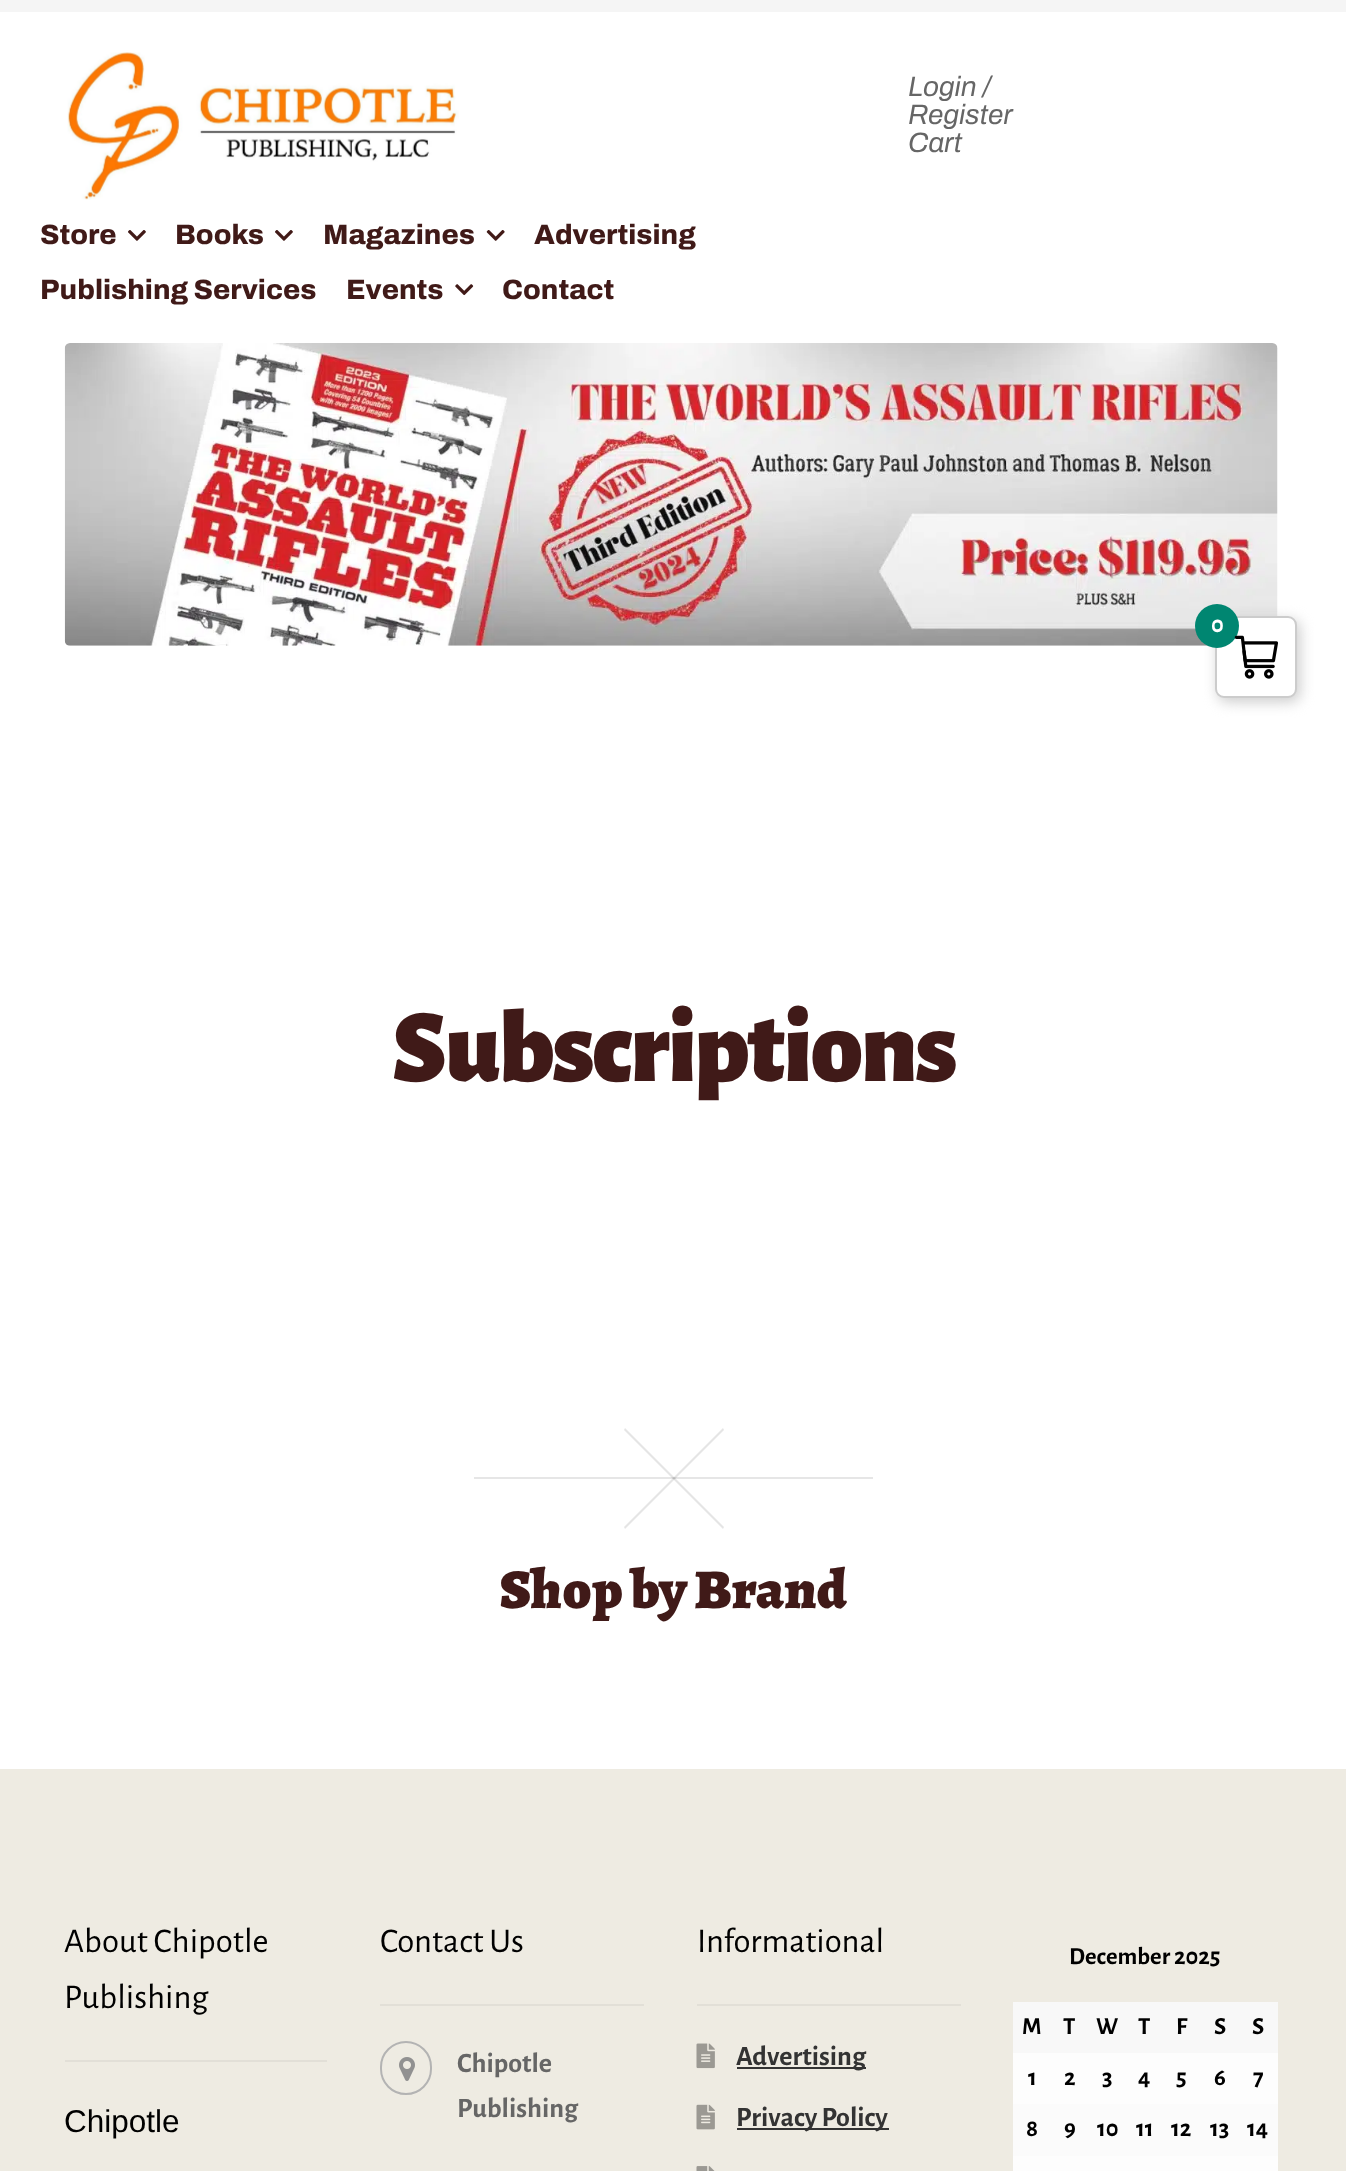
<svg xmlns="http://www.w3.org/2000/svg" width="1346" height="2171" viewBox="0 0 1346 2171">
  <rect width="100%" height="100%" fill="rgb(255,255,255)"/>
  <rect x="0" y="0" width="1346" height="12" fill="rgb(245,245,245)"/>
  <image x="67" y="52" width="392" height="148" href="pic1.png"/>
  <g font-family="Archivo" font-size="28" font-style="italic" fill="rgb(102,102,102)">
    <text>
      <tspan x="908" y="96">Login /</tspan>
      <tspan x="908" y="124">Register</tspan>
      <tspan x="908" y="152">Cart</tspan>
    </text>
  </g>
  <text x="40" y="244" font-family="Archivo" font-size="28" font-weight="800" fill="rgb(64,26,24)">Store</text>
  <image x="128" y="230" width="18" height="11" href="pic2.png"/>
  <text x="175" y="244" font-family="Archivo" font-size="28" font-weight="800" fill="rgb(64,26,24)">Books</text>
  <image x="275" y="230" width="18" height="11" href="pic2.png"/>
  <text x="323" y="244" font-family="Archivo" font-size="28" font-weight="800" fill="rgb(64,26,24)">Magazines</text>
  <image x="486" y="230" width="19" height="11" href="pic3.png"/>
  <g font-family="Archivo" font-size="28" font-weight="800" fill="rgb(64,26,24)">
    <text x="534" y="244">Advertising</text>
    <text x="40" y="299">Publishing Services</text>
    <text x="346" y="299">Events</text>
  </g>
  <image x="455" y="284" width="19" height="12" href="pic4.png"/>
  <text x="502" y="299" font-family="Archivo" font-size="28" font-weight="800" fill="rgb(64,26,24)">Contact</text>
  <image x="64" y="343" width="1214" height="303" href="pic5.png"/>
  <text x="392" y="1081" font-family="Alegreya Sans" font-size="103.75" font-weight="900" letter-spacing="-1.75" fill="rgb(64,26,24)">Subscriptions</text>
  <rect x="474" y="1477" width="399" height="2" fill="rgb(230,230,230)"/>
  <path d="M625 1428L724 1527L723 1529L624 1430Z" fill="rgba(0,0,0,0.1)"/>
  <path d="M624 1527L723 1428L724 1430L625 1529Z" fill="rgba(0,0,0,0.1)"/>
  <text x="500" y="1608" font-family="Alegreya" font-size="56" font-weight="900" fill="rgb(64,26,24)">Shop by Brand</text>
  <rect x="0" y="1769" width="1346" height="402" fill="rgb(238,235,226)"/>
  <rect x="65" y="2060" width="262" height="2" fill="rgb(226,223,215)"/>
  <g font-family="Alegreya Sans" font-size="34.75" fill="rgb(0,0,0)">
    <text>
      <tspan x="64" y="1952">About Chipotle</tspan>
      <tspan x="64" y="2008">Publishing</tspan>
    </text>
  </g>
  <text x="64" y="2132" font-family="Liberation Sans" font-size="31.5" fill="rgb(0,0,0)">Chipotle</text>
  <rect x="380" y="2004" width="264" height="2" fill="rgb(226,223,215)"/>
  <text x="380" y="1952" font-family="Alegreya Sans" font-size="34.75" fill="rgb(0,0,0)">Contact Us</text>
  <rect x="381" y="2042" width="50" height="52" rx="25" fill="none" stroke="rgb(179,179,179)" stroke-width="2"/>
  <image x="399" y="2057" width="16" height="24" href="pic6.png"/>
  <g font-family="Alegreya Sans" font-size="28" font-weight="bold" fill="rgb(102,102,102)">
    <text>
      <tspan x="457" y="2072">Chipotle</tspan>
      <tspan x="457" y="2117">Publishing</tspan>
    </text>
  </g>
  <rect x="697" y="2004" width="264" height="2" fill="rgb(226,223,215)"/>
  <text x="697" y="1952" font-family="Alegreya Sans" font-size="34.75" fill="rgb(0,0,0)">Informational</text>
  <image x="696" y="2043" width="19" height="26" href="pic7.png"/>
  <rect x="737" y="2067" width="129" height="2" fill="rgb(51,51,51)"/>
  <text x="736" y="2065" font-family="Alegreya Sans" font-size="28" font-weight="bold" fill="rgb(51,51,51)">Advertising</text>
  <image x="696" y="2104" width="19" height="26" href="pic8.png"/>
  <rect x="737" y="2128" width="152" height="2" fill="rgb(51,51,51)"/>
  <text x="736" y="2126" font-family="Alegreya Sans" font-size="28" font-weight="bold" fill="rgb(51,51,51)">Privacy Policy</text>
  <image x="696" y="2166" width="19" height="5" href="pic9.png"/>
  <text x="1069" y="1964" font-family="Alegreya Sans" font-size="24.5" font-weight="bold" fill="rgb(0,0,0)">December 2025</text>
  <rect x="1013" y="2002" width="265" height="51" fill="rgb(248,248,248)"/>
  <g font-family="Alegreya Sans" font-size="24.5" font-weight="bold" fill="rgb(0,0,0)">
    <text x="1022" y="2034">M</text>
    <text x="1063" y="2034">T</text>
    <text x="1096" y="2034">W</text>
    <text x="1138" y="2034">T</text>
    <text x="1176" y="2034">F</text>
    <text x="1214" y="2034">S</text>
    <text x="1252" y="2034">S</text>
  </g>
  <rect x="1013" y="2053" width="265" height="51" fill="rgb(253,253,253)"/>
  <g font-family="Alegreya Sans" font-size="24.5" font-weight="bold" fill="rgb(0,0,0)">
    <text x="1028" y="2085">1</text>
    <text x="1064" y="2085">2</text>
    <text x="1102" y="2085">3</text>
    <text x="1138" y="2085">4</text>
    <text x="1176" y="2085">5</text>
    <text x="1214" y="2085">6</text>
    <text x="1253" y="2085">7</text>
  </g>
  <rect x="1013" y="2104" width="265" height="52" fill="rgb(251,251,251)"/>
  <g font-family="Alegreya Sans" font-size="24.5" font-weight="bold" fill="rgb(0,0,0)">
    <text x="1026" y="2136">8</text>
    <text x="1064" y="2136">9</text>
    <text x="1097" y="2136">10</text>
    <text x="1136" y="2136">11</text>
    <text x="1171" y="2136">12</text>
    <text x="1210" y="2136">13</text>
    <text x="1247" y="2136">14</text>
  </g>
  <rect x="1013" y="2156" width="265" height="15" fill="rgb(253,253,253)"/>
  <rect x="1218" y="620" width="82" height="82" rx="9" fill="rgb(204,204,204)" filter="blur(7px)"/>
  <rect x="1216" y="617" width="80" height="80" rx="8" fill="rgb(255,255,255)" stroke="rgb(204,204,204)" stroke-width="2"/>
  <circle cx="1217" cy="626" r="22" fill="rgb(0,134,113)"/>
  <text x="1211" y="632" font-family="Alegreya Sans" font-size="24.5" font-weight="bold" fill="rgb(255,255,255)">0</text>
  <image x="1234" y="635" width="44" height="44" href="pic10.png"/>
</svg>
